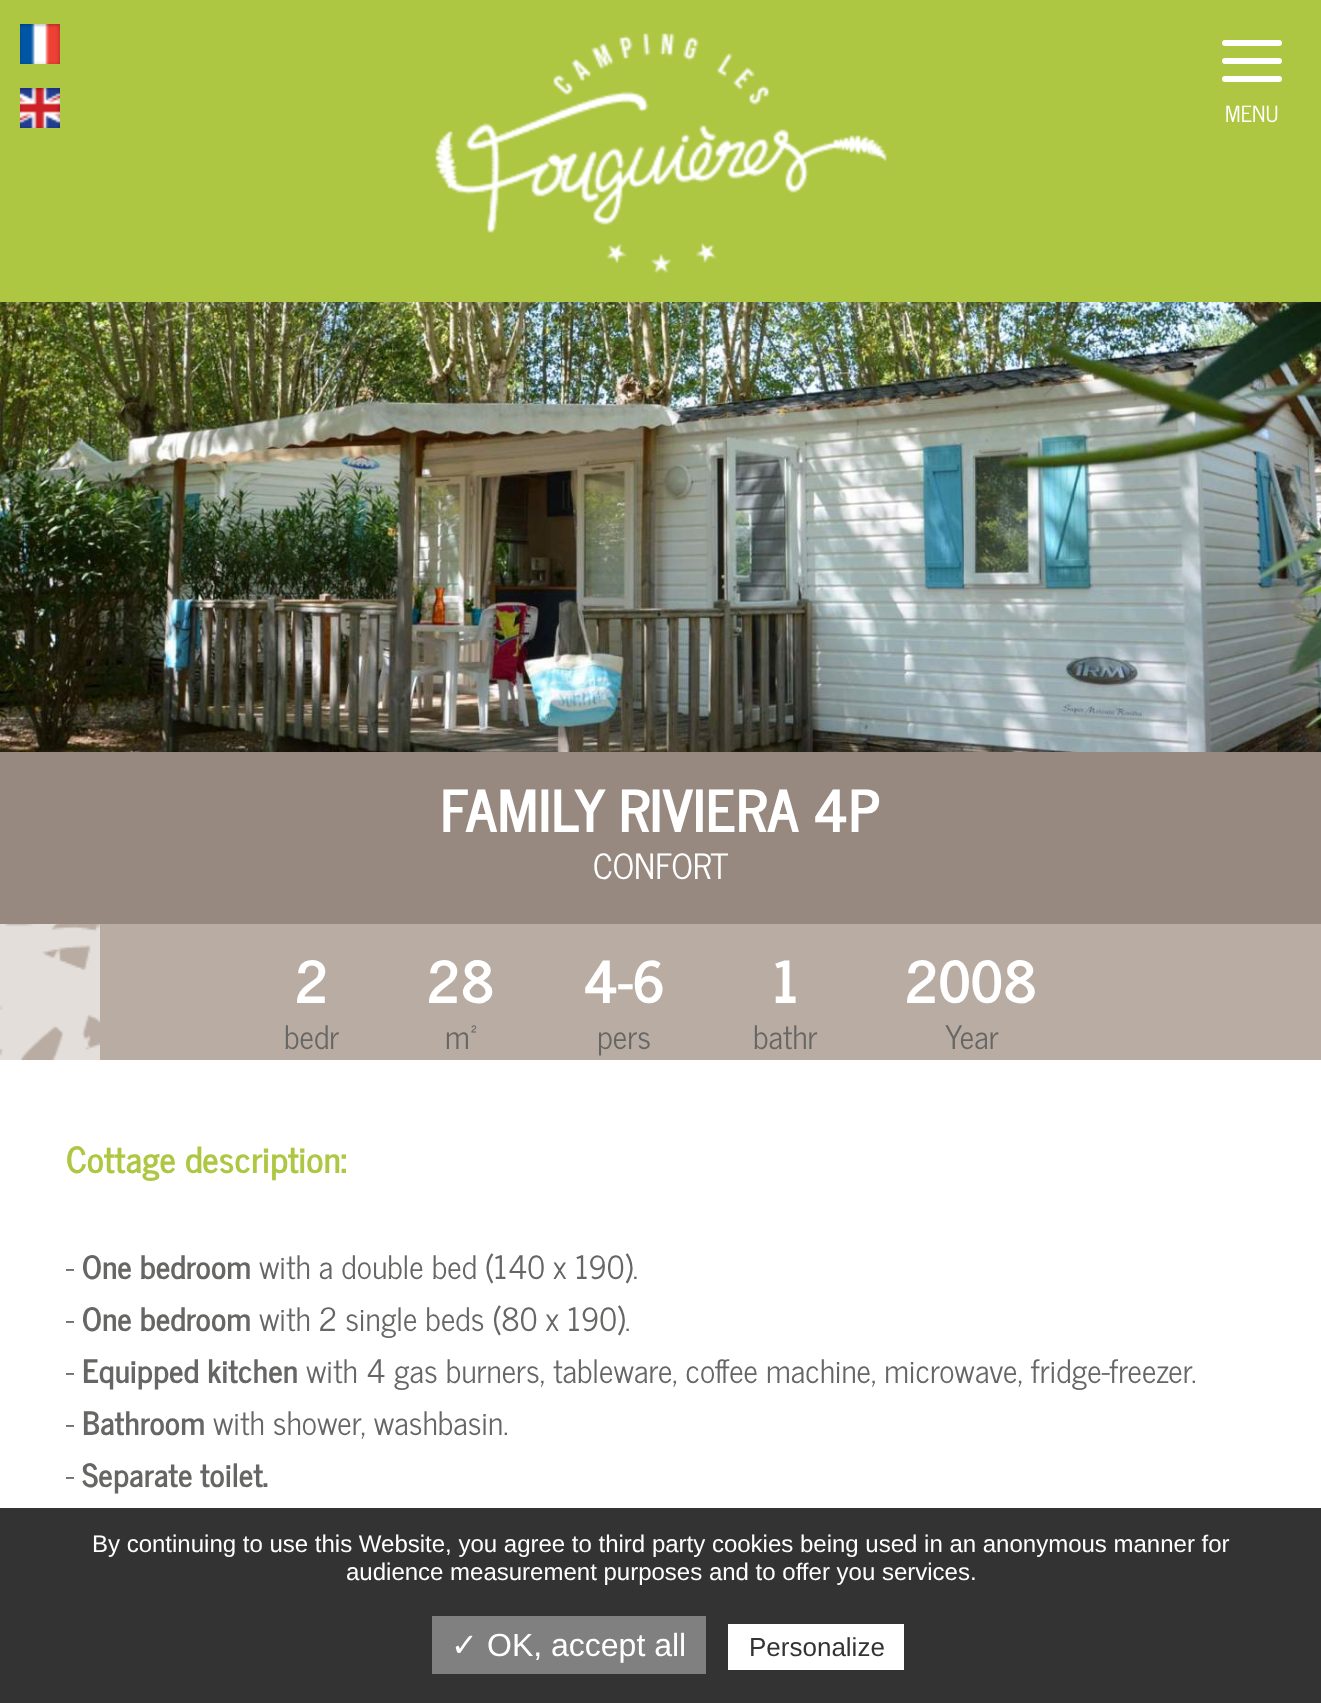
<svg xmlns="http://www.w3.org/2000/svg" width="1321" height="1703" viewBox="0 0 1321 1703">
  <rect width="100%" height="100%" fill="rgb(255,255,255)"/>
  <rect x="0" y="0" width="1321" height="302" fill="rgb(173,199,67)"/>
  <image x="20" y="24" width="40" height="40" href="pic1.png"/>
  <image x="20" y="88" width="40" height="40" href="pic2.png"/>
  <image x="435" y="33" width="452" height="240" href="pic3.png"/>
  <rect x="1222" y="40" width="60" height="6" rx="3" fill="rgb(255,255,255)"/>
  <rect x="1222" y="58" width="60" height="6" rx="3" fill="rgb(255,255,255)"/>
  <rect x="1222" y="76" width="60" height="6" rx="3" fill="rgb(255,255,255)"/>
  <text x="1225" y="122" font-family="News Cycle" font-size="22" fill="rgb(255,255,255)">MENU</text>
  <image x="0" y="302" width="1321" height="450" href="pic4.png"/>
  <rect x="100" y="924" width="1221" height="136" fill="rgb(185,172,163)"/>
  <image x="0" y="924" width="100" height="136" href="pic5.png"/>
  <rect x="0" y="752" width="1321" height="172" fill="rgb(151,137,127)"/>
  <text x="440" y="832" font-family="News Cycle" font-size="57.5" font-weight="bold" fill="rgb(255,255,255)">FAMILY RIVIERA 4P</text>
  <text x="593" y="879" font-family="News Cycle" font-size="34.5" fill="rgb(255,255,255)">CONFORT</text>
  <text x="295" y="1003" font-family="News Cycle" font-size="57.5" font-weight="bold" fill="rgb(255,255,255)">2</text>
  <text x="284" y="1049" font-family="News Cycle" font-size="32" fill="rgb(102,102,101)">bedr</text>
  <text x="427" y="1003" font-family="News Cycle" font-size="57.5" font-weight="bold" fill="rgb(255,255,255)">28</text>
  <text x="445" y="1049" font-family="News Cycle" font-size="32" fill="rgb(102,102,101)">m²</text>
  <text x="582" y="1003" font-family="News Cycle" font-size="57.5" font-weight="bold" fill="rgb(255,255,255)">4-6</text>
  <text x="597" y="1049" font-family="News Cycle" font-size="32" fill="rgb(102,102,101)">pers</text>
  <text x="773" y="1003" font-family="News Cycle" font-size="57.5" font-weight="bold" fill="rgb(255,255,255)">1</text>
  <text x="753" y="1049" font-family="News Cycle" font-size="32" fill="rgb(102,102,101)">bathr</text>
  <text x="905" y="1003" font-family="News Cycle" font-size="57.5" font-weight="bold" fill="rgb(255,255,255)">2008</text>
  <text x="945" y="1049" font-family="News Cycle" font-size="32" fill="rgb(102,102,101)">Year</text>
  <text x="66" y="1173" font-family="News Cycle" font-size="36" font-weight="bold" fill="rgb(173,199,67)">Cottage description:</text>
  <text x="66" y="1279" font-family="News Cycle" font-size="32" fill="rgb(102,102,101)">-</text>
  <text x="82" y="1279" font-family="News Cycle" font-size="32" font-weight="bold" fill="rgb(102,102,101)">One bedroom</text>
  <g font-family="News Cycle" font-size="32" fill="rgb(102,102,101)">
    <text x="259" y="1279">with a double bed (140 x 190).</text>
    <text x="66" y="1331">-</text>
  </g>
  <text x="82" y="1331" font-family="News Cycle" font-size="32" font-weight="bold" fill="rgb(102,102,101)">One bedroom</text>
  <g font-family="News Cycle" font-size="32" fill="rgb(102,102,101)">
    <text x="259" y="1331">with 2 single beds (80 x 190).</text>
    <text x="66" y="1383">-</text>
  </g>
  <text x="82" y="1383" font-family="News Cycle" font-size="32" font-weight="bold" fill="rgb(102,102,101)">Equipped kitchen</text>
  <g font-family="News Cycle" font-size="32" fill="rgb(102,102,101)">
    <text x="306" y="1383">with 4 gas burners, tableware, coffee machine, microwave, fridge-freezer.</text>
    <text x="66" y="1435">-</text>
  </g>
  <text x="82" y="1435" font-family="News Cycle" font-size="32" font-weight="bold" fill="rgb(102,102,101)">Bathroom</text>
  <g font-family="News Cycle" font-size="32" fill="rgb(102,102,101)">
    <text x="213" y="1435">with shower, washbasin.</text>
    <text x="66" y="1487">-</text>
  </g>
  <text x="82" y="1487" font-family="News Cycle" font-size="32" font-weight="bold" fill="rgb(102,102,101)">Separate toilet.</text>
  <rect x="0" y="1508" width="1321" height="195" fill="rgb(51,51,51)"/>
  <g font-family="Liberation Sans" font-size="24" fill="rgb(255,255,255)">
    <text x="92" y="1552">By continuing to use this Website, you agree to third party cookies being used in an anonymous manner for</text>
    <text x="346" y="1580">audience measurement purposes and to offer you services.</text>
  </g>
  <rect x="432" y="1616" width="274" height="58" fill="rgb(128,128,128)"/>
  <text x="451" y="1656" font-family="DejaVu Sans" font-size="32" fill="rgb(255,255,255)">✓</text>
  <text x="487" y="1656" font-family="Liberation Sans" font-size="32" fill="rgb(255,255,255)">OK, accept all</text>
  <rect x="728" y="1624" width="176" height="46" fill="rgb(255,255,255)"/>
  <text x="749" y="1656" font-family="Liberation Sans" font-size="26" fill="rgb(51,51,51)">Personalize</text>
</svg>
